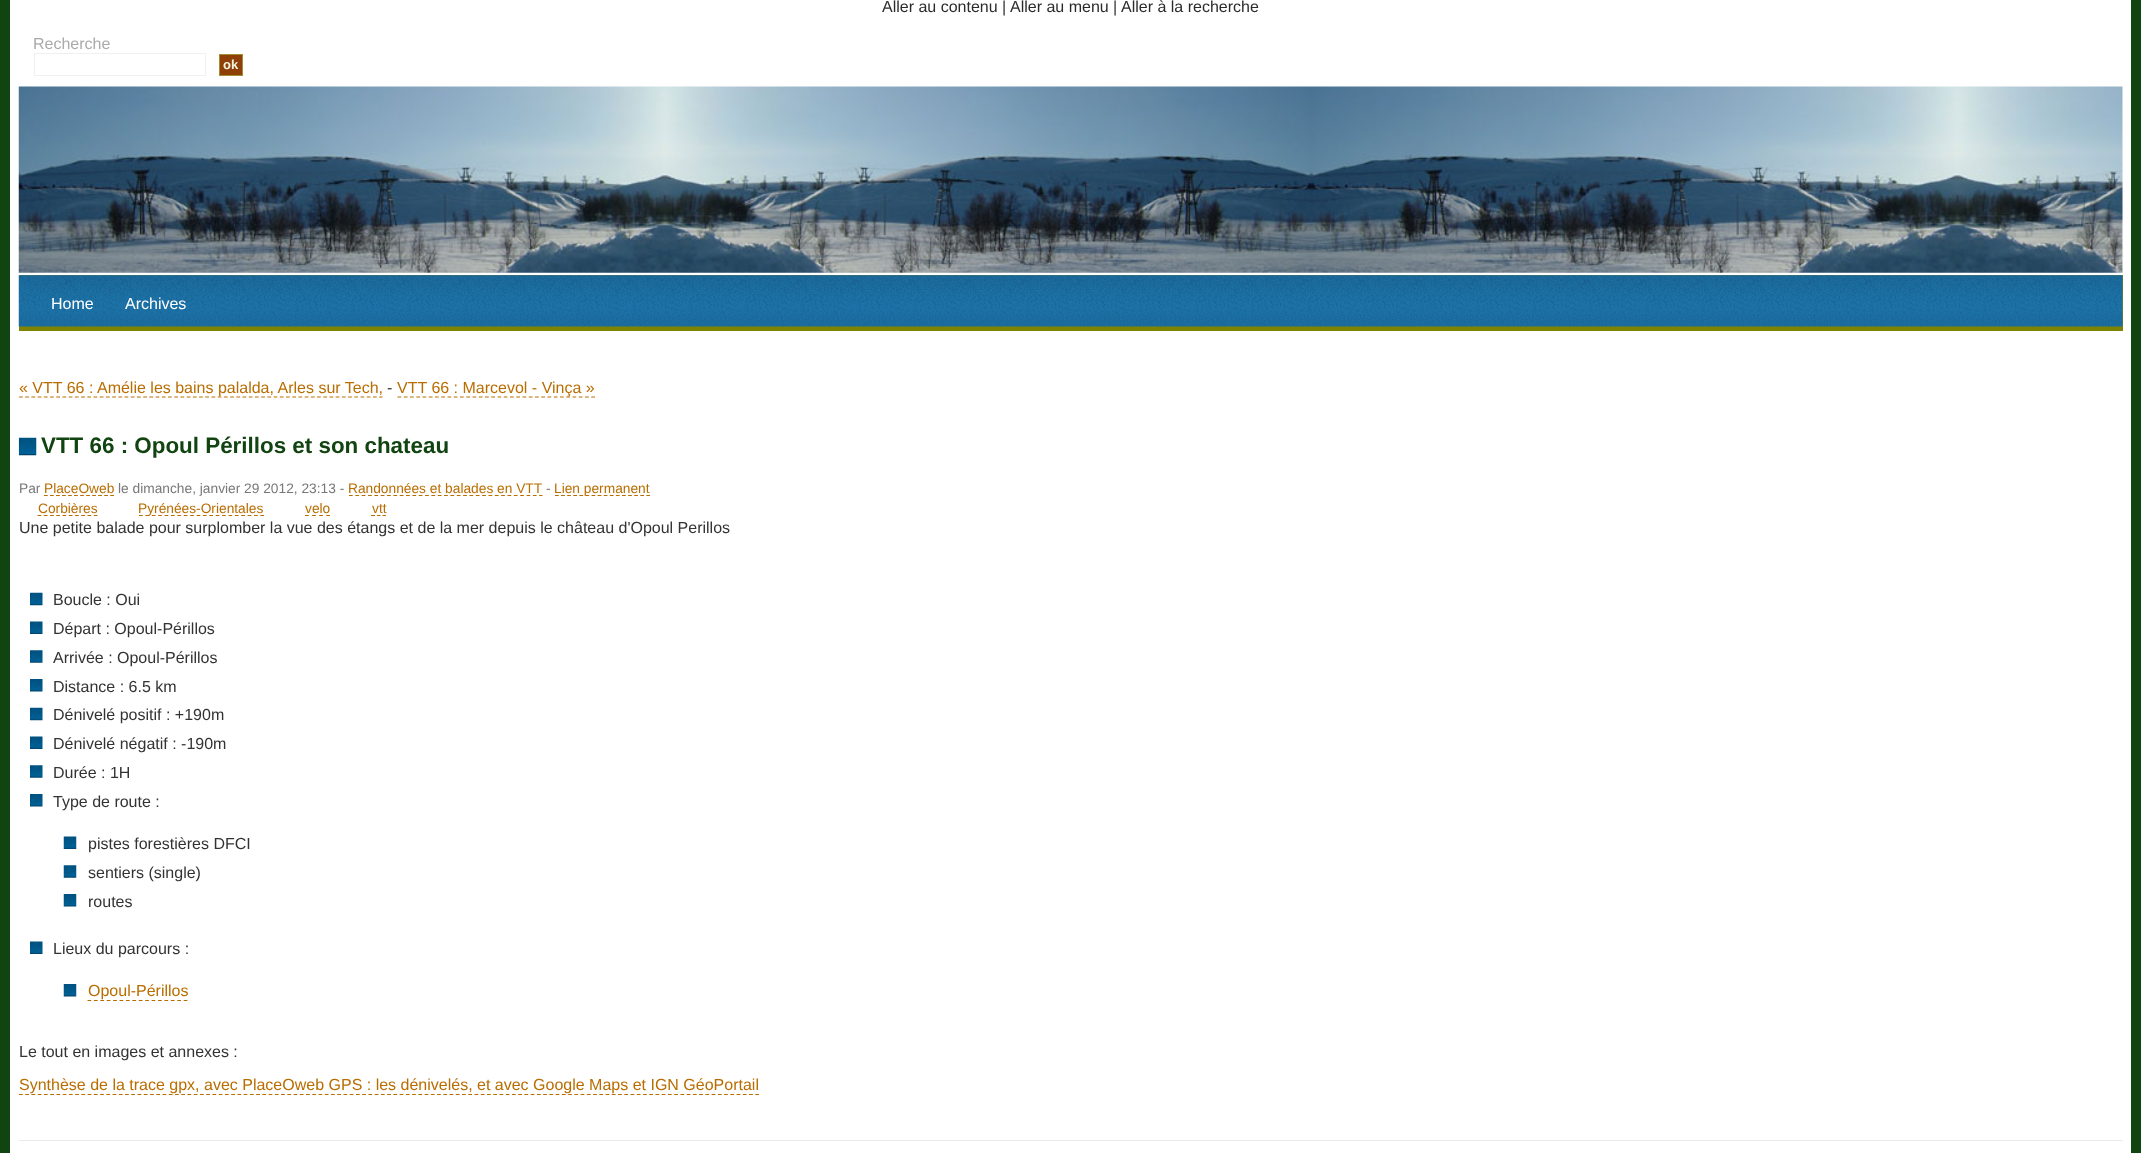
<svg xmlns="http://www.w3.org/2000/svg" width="2141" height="1153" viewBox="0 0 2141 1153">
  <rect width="100%" height="100%" fill="rgb(17,68,17)"/>
  <rect x="10" y="0" width="2121" height="1153" fill="rgb(255,255,255)"/>
  <text x="882" y="12" font-family="Liberation Sans" font-size="16" fill="rgb(43,43,43)">Aller au contenu</text>
  <text x="1002" y="12" font-family="Liberation Sans" font-size="16" fill="rgb(51,51,51)">|</text>
  <text x="1010" y="12" font-family="Liberation Sans" font-size="16" fill="rgb(43,43,43)">Aller au menu</text>
  <text x="1113" y="12" font-family="Liberation Sans" font-size="16" fill="rgb(51,51,51)">|</text>
  <text x="1121" y="12" font-family="Liberation Sans" font-size="16" fill="rgb(43,43,43)">Aller à la recherche</text>
  <text x="33" y="49" font-family="Liberation Sans" font-size="16" fill="rgb(170,170,170)">Recherche</text>
  <rect x="34.5" y="53.5" width="171" height="22" fill="none" stroke="rgb(240,240,240)"/>
  <rect x="219.5" y="54.5" width="23" height="21" fill="rgb(143,64,8)" stroke="rgb(159,144,48)"/>
  <text x="223" y="69" font-family="Liberation Sans" font-size="13" font-weight="bold" fill="rgb(242,243,222)">ok</text>
  <image x="18" y="86" width="2105" height="187" href="pic1.png"/>
  <rect x="19" y="275" width="2104" height="56" fill="rgb(127,132,0)"/>
  <image x="18" y="275" width="2105" height="52" href="pic2.png"/>
  <g font-family="Liberation Sans" font-size="16" fill="rgb(255,255,255)">
    <text x="51" y="309">Home</text>
    <text x="125" y="309">Archives</text>
  </g>
  <path d="M19 397H382.5" fill="none" stroke="rgb(185,109,0)" stroke-width="1.2" stroke-dasharray="3.75 2.46"/>
  <text x="19" y="393" font-family="Liberation Sans" font-size="16" fill="rgb(185,109,0)">« VTT 66 : Amélie les bains palalda, Arles sur Tech,</text>
  <text x="387" y="393" font-family="Liberation Sans" font-size="16" fill="rgb(51,51,51)">-</text>
  <path d="M397.5 397H595" fill="none" stroke="rgb(185,109,0)" stroke-width="1.2" stroke-dasharray="3.75 2.5"/>
  <text x="397" y="393" font-family="Liberation Sans" font-size="16" fill="rgb(185,109,0)">VTT 66 : Marcevol - Vinça »</text>
  <rect x="19" y="1140" width="2104" height="1" fill="rgb(234,234,234)"/>
  <image x="18" y="437" width="19" height="19" href="pic3.png"/>
  <text x="41" y="453" font-family="Liberation Sans" font-size="22.4" font-weight="bold" fill="rgb(17,68,17)">VTT 66 : Opoul Périllos et son chateau</text>
  <text x="19" y="493" font-family="Liberation Sans" font-size="13.75" fill="rgb(120,120,120)">Par</text>
  <text x="44" y="493" font-family="Liberation Sans" font-size="13.75" fill="rgb(185,109,0)">PlaceOweb</text>
  <path d="M44 495.5H114" fill="none" stroke="rgb(185,109,0)" stroke-width="1.2" stroke-dasharray="3.75 2.27"/>
  <text x="118" y="493" font-family="Liberation Sans" font-size="13.75" fill="rgb(120,120,120)">le dimanche, janvier 29 2012, 23:13 -</text>
  <text x="348" y="493" font-family="Liberation Sans" font-size="13.75" fill="rgb(185,109,0)">Randonnées et balades en VTT</text>
  <path d="M349 495.5H542.5" fill="none" stroke="rgb(185,109,0)" stroke-width="1.2" stroke-dasharray="3.75 2.59"/>
  <text x="546" y="493" font-family="Liberation Sans" font-size="13.75" fill="rgb(120,120,120)">-</text>
  <path d="M555 495.5H650" fill="none" stroke="rgb(185,109,0)" stroke-width="1.2" stroke-dasharray="3.75 2.34"/>
  <g font-family="Liberation Sans" font-size="13.75" fill="rgb(185,109,0)">
    <text x="554" y="493">Lien permanent</text>
    <text x="38" y="513">Corbières</text>
  </g>
  <path d="M37.5 515.5H97.5" fill="none" stroke="rgb(185,109,0)" stroke-width="1.2" stroke-dasharray="3.75 2.5"/>
  <path d="M139 515.5H264" fill="none" stroke="rgb(185,109,0)" stroke-width="1.2" stroke-dasharray="3.75 2.64"/>
  <g font-family="Liberation Sans" font-size="13.75" fill="rgb(185,109,0)">
    <text x="138" y="513">Pyrénées-Orientales</text>
    <text x="305" y="513">velo</text>
  </g>
  <path d="M305 515.5H330" fill="none" stroke="rgb(185,109,0)" stroke-width="1.2" stroke-dasharray="3.75 3.34"/>
  <text x="372" y="513" font-family="Liberation Sans" font-size="13.75" fill="rgb(185,109,0)">vtt</text>
  <path d="M371 515.5H375M377 515.5H380.5M382.5 515.5H386" fill="none" stroke="rgb(185,109,0)" stroke-width="1.2"/>
  <text x="19" y="533" font-family="Liberation Sans" font-size="16" fill="rgb(51,51,51)">Une petite balade pour surplomber la vue des étangs et de la mer depuis le château d'Opoul Perillos</text>
  <image x="30" y="592" width="13" height="14" href="pic4.png"/>
  <text x="53" y="605" font-family="Liberation Sans" font-size="16" fill="rgb(51,51,51)">Boucle : Oui</text>
  <image x="30" y="621" width="13" height="13" href="pic5.png"/>
  <text x="53" y="634" font-family="Liberation Sans" font-size="16" fill="rgb(51,51,51)">Départ : Opoul-Périllos</text>
  <image x="30" y="650" width="13" height="13" href="pic6.png"/>
  <text x="53" y="663" font-family="Liberation Sans" font-size="16" fill="rgb(51,51,51)">Arrivée : Opoul-Périllos</text>
  <image x="30" y="679" width="13" height="13" href="pic7.png"/>
  <text x="53" y="692" font-family="Liberation Sans" font-size="16" fill="rgb(51,51,51)">Distance : 6.5 km</text>
  <image x="30" y="707" width="13" height="14" href="pic4.png"/>
  <text x="53" y="720" font-family="Liberation Sans" font-size="16" fill="rgb(51,51,51)">Dénivelé positif : +190m</text>
  <image x="30" y="736" width="13" height="13" href="pic8.png"/>
  <text x="53" y="749" font-family="Liberation Sans" font-size="16" fill="rgb(51,51,51)">Dénivelé négatif : -190m</text>
  <image x="30" y="765" width="13" height="13" href="pic6.png"/>
  <text x="53" y="778" font-family="Liberation Sans" font-size="16" fill="rgb(51,51,51)">Durée : 1H</text>
  <image x="30" y="794" width="13" height="13" href="pic7.png"/>
  <text x="53" y="807" font-family="Liberation Sans" font-size="16" fill="rgb(51,51,51)">Type de route :</text>
  <image x="63" y="836" width="14" height="13" href="pic9.png"/>
  <text x="88" y="849" font-family="Liberation Sans" font-size="16" fill="rgb(51,51,51)">pistes forestières DFCI</text>
  <image x="63" y="865" width="14" height="13" href="pic10.png"/>
  <text x="88" y="878" font-family="Liberation Sans" font-size="16" fill="rgb(51,51,51)">sentiers (single)</text>
  <image x="63" y="894" width="14" height="13" href="pic11.png"/>
  <text x="88" y="907" font-family="Liberation Sans" font-size="16" fill="rgb(51,51,51)">routes</text>
  <image x="30" y="941" width="13" height="13" href="pic8.png"/>
  <text x="53" y="954" font-family="Liberation Sans" font-size="16" fill="rgb(51,51,51)">Lieux du parcours :</text>
  <image x="63" y="984" width="14" height="13" href="pic11.png"/>
  <path d="M87.5 1000.5H187.5" fill="none" stroke="rgb(185,109,0)" stroke-width="1.2" stroke-dasharray="3.75 2.66"/>
  <text x="88" y="996" font-family="Liberation Sans" font-size="16" fill="rgb(185,109,0)">Opoul-Périllos</text>
  <text x="19" y="1057" font-family="Liberation Sans" font-size="16" fill="rgb(51,51,51)">Le tout en images et annexes :</text>
  <path d="M19 1094.5H759" fill="none" stroke="rgb(185,109,0)" stroke-width="1.2" stroke-dasharray="3.75 2.49"/>
  <text x="19" y="1090" font-family="Liberation Sans" font-size="16" fill="rgb(185,109,0)">Synthèse de la trace gpx, avec PlaceOweb GPS : les dénivelés, et avec Google Maps et IGN GéoPortail</text>
</svg>
